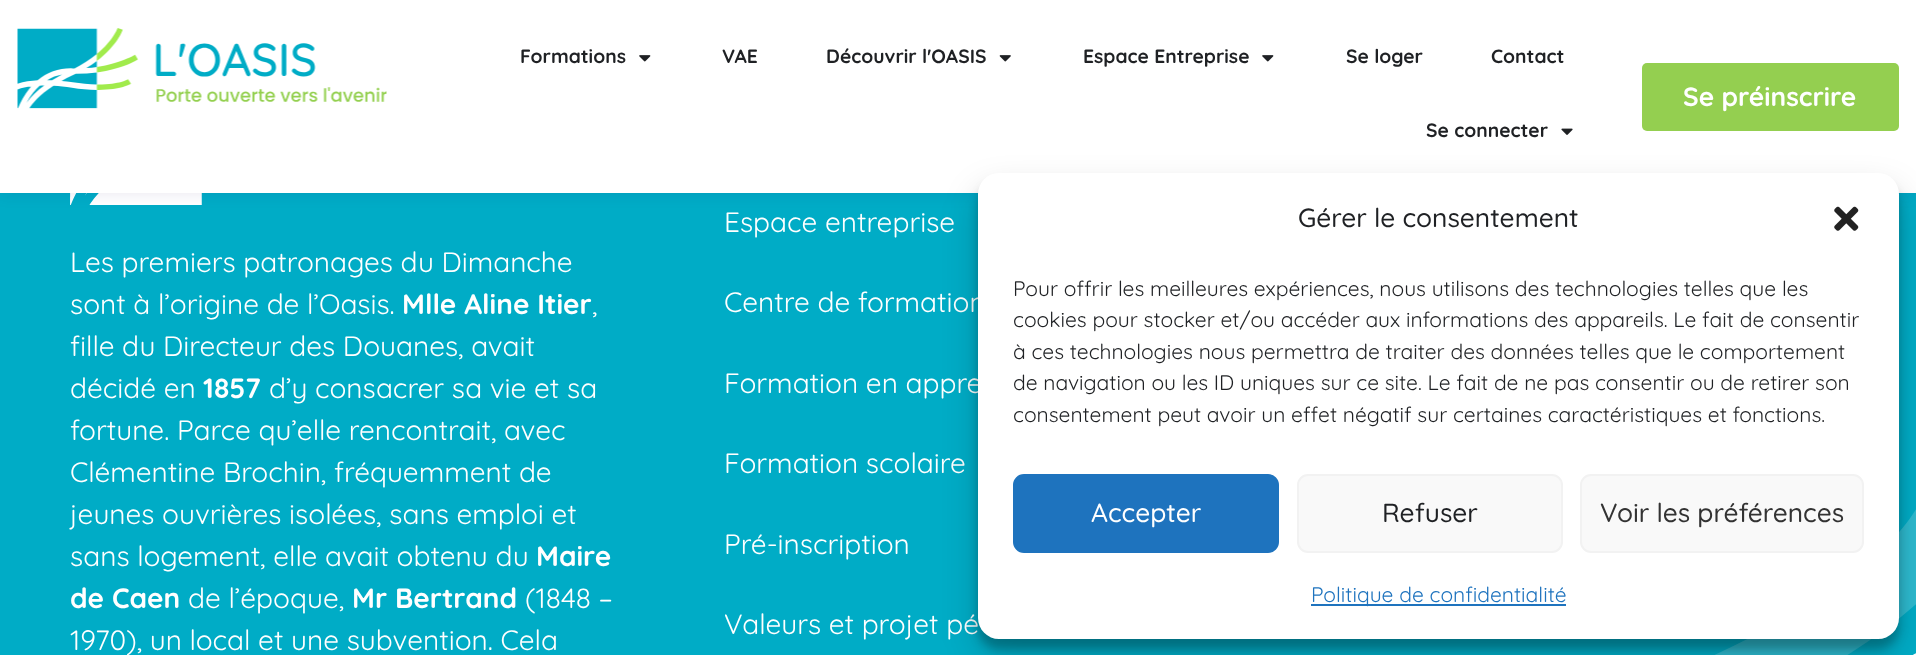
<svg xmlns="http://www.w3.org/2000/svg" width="1916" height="655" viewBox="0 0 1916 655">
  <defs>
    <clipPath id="clip1"><rect x="959" y="474" width="957" height="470"/></clipPath>
  </defs>
  <rect width="100%" height="100%" fill="rgb(0,172,198)"/>
  <image x="70" y="193" width="132" height="12" href="pic5.png"/>
  <rect x="0" y="4" width="1916" height="192" fill="rgba(16,7,104,0.07)" filter="blur(7px)"/>
  <rect x="0" y="0" width="1916" height="193" fill="rgb(255,255,255)"/>
  <image x="17" y="28" width="370" height="81" href="pic1.png"/>
  <text x="520" y="63" font-family="Quicksand" font-size="19.25" font-weight="bold" fill="rgb(31,33,36)">Formations</text>
  <image x="639" y="55" width="12" height="7" href="pic2.png"/>
  <g font-family="Quicksand" font-size="19.25" font-weight="bold" fill="rgb(31,33,36)">
    <text x="722" y="63">VAE</text>
    <text x="826" y="63">Découvrir l'OASIS</text>
  </g>
  <image x="999" y="55" width="12" height="7" href="pic3.png"/>
  <text x="1083" y="63" font-family="Quicksand" font-size="19.25" font-weight="bold" fill="rgb(31,33,36)">Espace Entreprise</text>
  <image x="1262" y="55" width="12" height="7" href="pic2.png"/>
  <g font-family="Quicksand" font-size="19.25" font-weight="bold" fill="rgb(31,33,36)">
    <text x="1346" y="63">Se loger</text>
    <text x="1491" y="63">Contact</text>
    <text x="1426" y="137">Se connecter</text>
  </g>
  <image x="1561" y="128" width="12" height="7" href="pic4.png"/>
  <rect x="1642" y="63" width="257" height="68" rx="5" fill="rgb(148,207,80)"/>
  <text x="1683" y="106" font-family="Quicksand" font-size="26.25" font-weight="bold" fill="rgb(255,255,255)">Se préinscrire</text>
  <path d="M1001 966.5C1001 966.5 1217.5 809.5 1672.5 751C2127.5 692 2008.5 508 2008.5 508" fill="none" stroke="rgb(255,255,255)" stroke-width="63"/>
  <g clip-path="url(#clip1)">
    <path d="M1077.5 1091C1077.5 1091 1246.5 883 1670.5 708.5C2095 534 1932.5 387 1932.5 387" fill="none" stroke="rgb(46,187,208)" stroke-width="63"/>
  </g>
  <g font-family="Quicksand" font-size="28" fill="rgb(255,255,255)">
    <text>
      <tspan x="70" y="272">Les premiers patronages du Dimanche</tspan>
      <tspan x="70" y="314">sont à l’origine de l’Oasis.</tspan>
    </text>
  </g>
  <text x="402" y="314" font-family="Quicksand" font-size="28" font-weight="bold" fill="rgb(255,255,255)">Mlle Aline Itier</text>
  <g font-family="Quicksand" font-size="28" fill="rgb(255,255,255)">
    <text x="592" y="314">,</text>
    <text>
      <tspan x="70" y="356">fille du Directeur des Douanes, avait</tspan>
      <tspan x="70" y="398">décidé en</tspan>
    </text>
  </g>
  <text x="203" y="398" font-family="Quicksand" font-size="28" font-weight="bold" fill="rgb(255,255,255)">1857</text>
  <g font-family="Quicksand" font-size="28" fill="rgb(255,255,255)">
    <text x="269" y="398">d’y consacrer sa vie et sa</text>
    <text>
      <tspan x="70" y="440">fortune. Parce qu’elle rencontrait, avec</tspan>
      <tspan x="70" y="482">Clémentine Brochin, fréquemment de</tspan>
      <tspan x="70" y="524">jeunes ouvrières isolées, sans emploi et</tspan>
      <tspan x="70" y="566">sans logement, elle avait obtenu du</tspan>
    </text>
  </g>
  <g font-family="Quicksand" font-size="28" font-weight="bold" fill="rgb(255,255,255)">
    <text x="536" y="566">Maire</text>
    <text x="70" y="608">de Caen</text>
  </g>
  <text x="188" y="608" font-family="Quicksand" font-size="28" fill="rgb(255,255,255)">de l’époque,</text>
  <text x="352" y="608" font-family="Quicksand" font-size="28" font-weight="bold" fill="rgb(255,255,255)">Mr Bertrand</text>
  <g font-family="Quicksand" font-size="28" fill="rgb(255,255,255)">
    <text x="525" y="608">(1848 –</text>
    <text x="70" y="650">1970), un local et une subvention. Cela</text>
    <text x="724" y="232">Espace entreprise</text>
    <text x="724" y="312">Centre de formation</text>
    <text x="724" y="393">Formation en appre</text>
    <text x="724" y="473">Formation scolaire</text>
    <text x="724" y="554">Pré-inscription</text>
    <text x="724" y="634">Valeurs et projet pé</text>
  </g>
  <rect x="978" y="184" width="921" height="465" rx="21" fill="rgba(0,0,0,0.23)" filter="blur(5px)"/>
  <rect x="978" y="191" width="921" height="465" rx="21" fill="rgba(0,0,0,0.19)" filter="blur(17.5px)"/>
  <rect x="978" y="173" width="921" height="466" rx="21" fill="rgb(255,255,255)"/>
  <text x="1298" y="227" font-family="Quicksand" font-size="26.25" font-weight="500" fill="rgb(31,33,36)">Gérer le consentement</text>
  <image x="1834" y="206" width="25" height="25" href="pic6.png"/>
  <g font-family="Quicksand" font-size="21" fill="rgb(31,33,36)">
    <text>
      <tspan x="1013" y="296">Pour offrir les meilleures expériences, nous utilisons des technologies telles que les</tspan>
      <tspan x="1013" y="327">cookies pour stocker et/ou accéder aux informations des appareils. Le fait de consentir</tspan>
      <tspan x="1013" y="359">à ces technologies nous permettra de traiter des données telles que le comportement</tspan>
      <tspan x="1013" y="390">de navigation ou les ID uniques sur ce site. Le fait de ne pas consentir ou de retirer son</tspan>
      <tspan x="1013" y="422">consentement peut avoir un effet négatif sur certaines caractéristiques et fonctions.</tspan>
    </text>
  </g>
  <rect x="1014" y="475" width="264" height="77" rx="10" fill="rgb(30,115,190)" stroke="rgb(30,115,190)" stroke-width="2"/>
  <text x="1091" y="522" font-family="Quicksand" font-size="26.25" font-weight="500" fill="rgb(255,255,255)">Accepter</text>
  <rect x="1298" y="475" width="264" height="77" rx="10" fill="rgb(249,249,249)" stroke="rgb(242,242,242)" stroke-width="2"/>
  <text x="1382" y="522" font-family="Quicksand" font-size="26.25" font-weight="500" fill="rgb(31,33,36)">Refuser</text>
  <rect x="1581" y="475" width="282" height="77" rx="10" fill="rgb(249,249,249)" stroke="rgb(242,242,242)" stroke-width="2"/>
  <text x="1600" y="522" font-family="Quicksand" font-size="26.25" font-weight="500" fill="rgb(51,51,51)">Voir les préférences</text>
  <rect x="1311" y="604" width="255" height="2" fill="rgb(30,115,190)"/>
  <text x="1311" y="602" font-family="Quicksand" font-size="21" fill="rgb(30,115,190)">Politique de confidentialité</text>
</svg>
